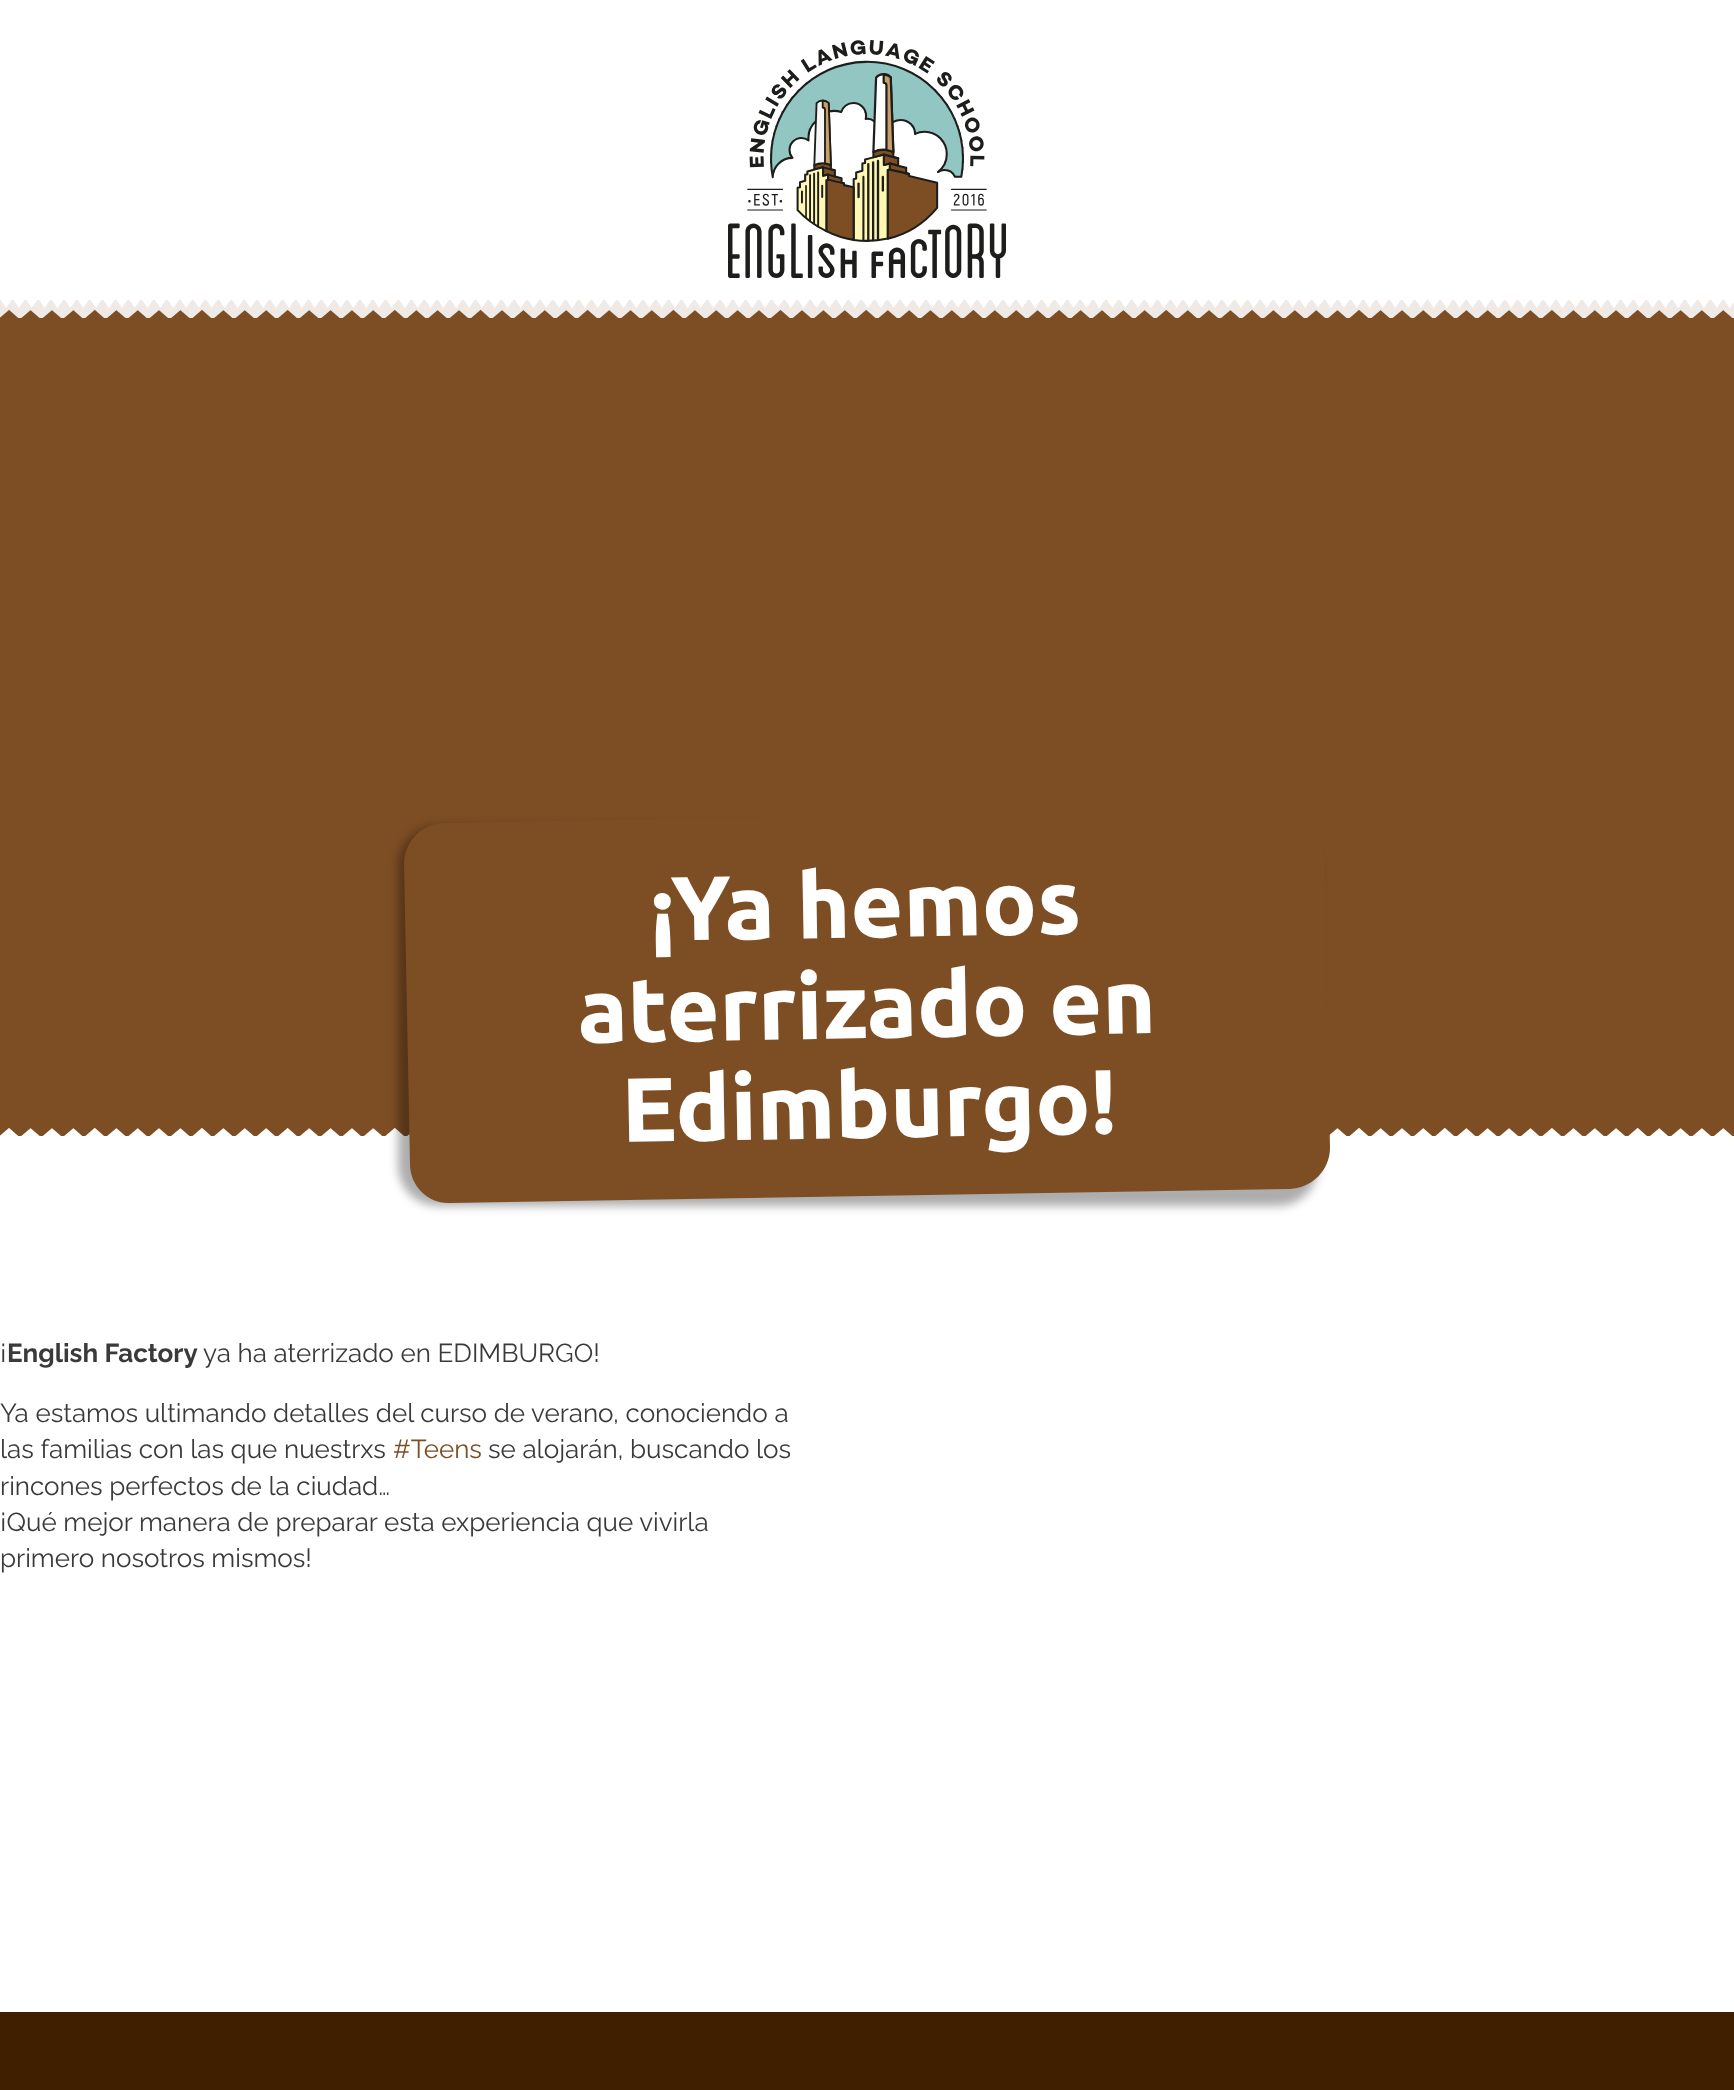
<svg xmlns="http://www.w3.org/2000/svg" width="1734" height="2090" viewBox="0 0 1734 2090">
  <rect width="100%" height="100%" fill="rgb(255,255,255)"/>
  <image x="728" y="40" width="278" height="238" href="pic1.png"/>
  <rect x="0" y="300" width="1734" height="18" fill="rgb(239,234,229)"/>
  <image x="0" y="310" width="1733" height="8" href="pic2.png"/>
  <rect x="0" y="318" width="1734" height="818" fill="rgb(125,78,36)"/>
  <image x="0" y="300" width="1734" height="8" href="pic3.png"/>
  <image x="0" y="1128" width="1733" height="8" href="pic4.png"/>
  <rect x="398" y="826" width="920" height="380" rx="40" fill="rgba(0,0,0,0.32)" filter="blur(5px)"/>
  <path d="M444 823L1284 808C1306 808 1324 826 1324 848L1330 1148C1330 1170 1312 1188 1290 1189L450 1203C428 1204 410 1186 410 1164L404 864C404 842 422 823 444 823Z" fill="rgb(125,78,36)"/>
  <g font-family="Ubuntu" font-size="91" font-weight="bold" fill="rgb(255,255,255)">
    <text x="650" y="941" transform="rotate(-1 650 941)">¡Ya hemos</text>
    <text x="578" y="1043" transform="rotate(-1 578 1043)">aterrizado en</text>
    <text x="622" y="1142" transform="rotate(-1 622 1142)">Edimburgo!</text>
  </g>
  <text x="0" y="1362" font-family="Raleway" font-size="26" fill="rgb(58,58,58)">¡</text>
  <text x="7" y="1362" font-family="Raleway" font-size="26" font-weight="bold" fill="rgb(58,58,58)">English Factory</text>
  <g font-family="Raleway" font-size="26" fill="rgb(58,58,58)">
    <text x="203" y="1362">ya ha aterrizado en EDIMBURGO!</text>
    <text>
      <tspan x="0" y="1422">Ya estamos ultimando detalles del curso de verano, conociendo a</tspan>
      <tspan x="0" y="1458">las familias con las que nuestrxs</tspan>
    </text>
  </g>
  <text x="393" y="1458" font-family="Raleway" font-size="26" fill="rgb(125,78,36)">#Teens</text>
  <g font-family="Raleway" font-size="26" fill="rgb(58,58,58)">
    <text x="488" y="1458">se alojarán, buscando los</text>
    <text>
      <tspan x="0" y="1495">rincones perfectos de la ciudad…</tspan>
      <tspan x="0" y="1531">¡Qué mejor manera de preparar esta experiencia que vivirla</tspan>
      <tspan x="0" y="1567">primero nosotros mismos!</tspan>
    </text>
  </g>
  <rect x="0" y="2012" width="1734" height="78" fill="rgb(64,30,0)"/>
</svg>
